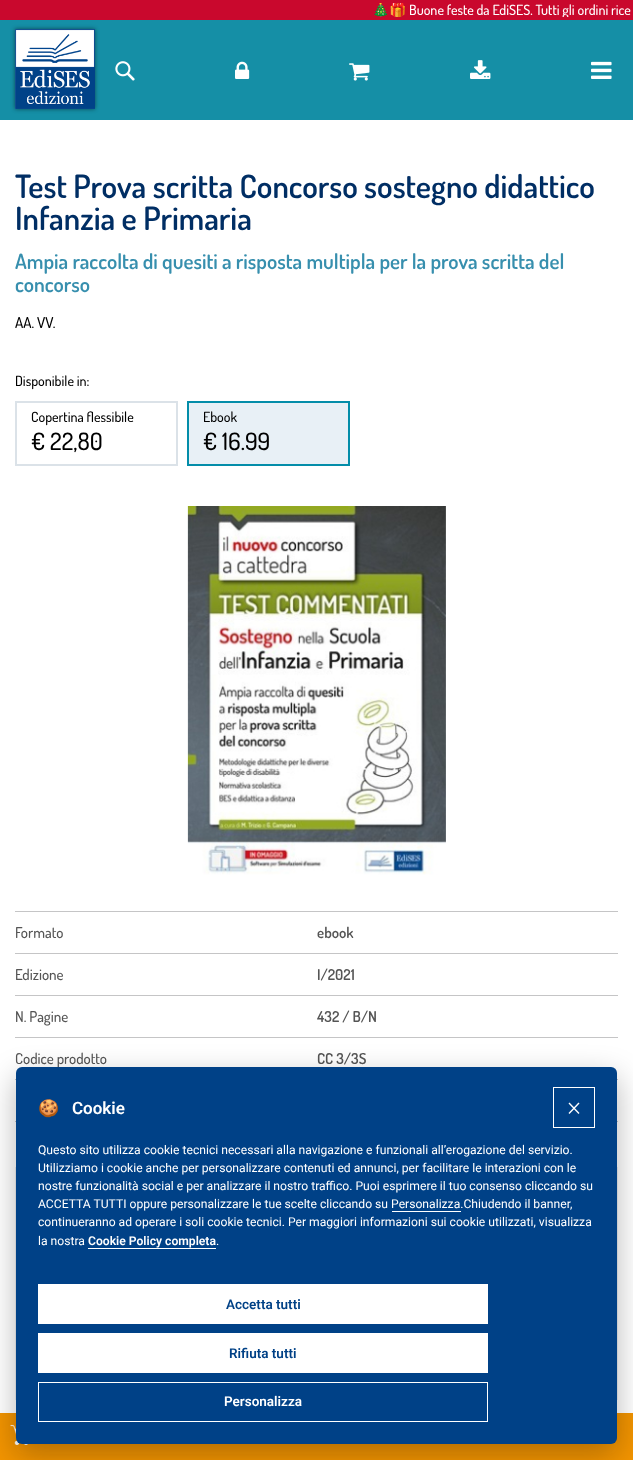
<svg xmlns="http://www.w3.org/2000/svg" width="633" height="1460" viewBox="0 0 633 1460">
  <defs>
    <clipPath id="clip1"><rect x="0" y="3" width="633" height="14"/></clipPath>
  </defs>
  <rect width="100%" height="100%" fill="rgb(255,255,255)"/>
  <rect x="0" y="0" width="633" height="20" fill="rgb(201,8,45)"/>
  <g clip-path="url(#clip1)">
    <text x="372" y="15" font-family="Noto Color Emoji" font-size="14" fill="rgb(255,255,255)">🎄🎁</text>
    <text x="409" y="15" font-family="'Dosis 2'" font-size="14" font-weight="200" fill="rgb(255,255,255)">Buone feste da EdiSES. Tutti gli ordini rice</text>
  </g>
  <rect x="0" y="20" width="633" height="100" fill="rgb(21,143,166)"/>
  <rect x="15" y="29" width="80" height="80" fill="rgba(0,0,0,0.5)" filter="blur(2px)"/>
  <rect x="15" y="29" width="80" height="80" fill="rgb(255,255,255)"/>
  <image x="15" y="29" width="80" height="80" href="pic1.png"/>
  <image x="115" y="61" width="20" height="20" href="pic2.png"/>
  <image x="235" y="61" width="15" height="18" href="pic3.png"/>
  <image x="349" y="63" width="21" height="18" href="pic4.png"/>
  <image x="470" y="60" width="21" height="19" href="pic5.png"/>
  <image x="591" y="61" width="21" height="18" href="pic6.png"/>
  <g font-family="Dosis" font-size="32" font-weight="200" fill="rgb(0,46,100)">
    <text>
      <tspan x="15" y="198">Test Prova scritta Concorso sostegno didattico</tspan>
      <tspan x="15" y="230">Infanzia e Primaria</tspan>
    </text>
  </g>
  <g font-family="Dosis" font-size="21" font-weight="200" fill="rgb(55,143,174)">
    <text>
      <tspan x="15" y="269">Ampia raccolta di quesiti a risposta multipla per la prova scritta del</tspan>
      <tspan x="15" y="292">concorso</tspan>
    </text>
  </g>
  <text x="15" y="328" font-family="'Dosis 2'" font-size="15" font-weight="200" fill="rgb(0,0,0)">AA. VV.</text>
  <text x="15" y="386" font-family="'Dosis 2'" font-size="14" font-weight="200" fill="rgb(0,0,0)">Disponibile in:</text>
  <rect x="16" y="402" width="161" height="63" fill="none" stroke="rgb(219,226,232)" stroke-width="2"/>
  <text x="31" y="422" font-family="'Dosis 2'" font-size="14" font-weight="200" fill="rgb(0,0,0)">Copertina flessibile</text>
  <text x="31" y="450" font-family="'Dosis 2'" font-size="24" font-weight="200" fill="rgb(0,0,0)">€ 22,80</text>
  <rect x="188" y="402" width="161" height="63" fill="rgb(232,240,246)" stroke="rgb(3,141,169)" stroke-width="2"/>
  <text x="203" y="422" font-family="'Dosis 2'" font-size="14" font-weight="200" fill="rgb(0,0,0)">Ebook</text>
  <text x="203" y="450" font-family="'Dosis 2'" font-size="24" font-weight="200" fill="rgb(0,0,0)">€ 16.99</text>
  <image x="187" y="506" width="259" height="369" href="pic7.png"/>
  <rect x="15" y="911" width="603" height="1" fill="rgb(197,197,198)"/>
  <rect x="15" y="953" width="603" height="1" fill="rgb(197,197,198)"/>
  <text x="15" y="938" font-family="'Dosis 2'" font-size="15" font-weight="200" fill="rgb(85,85,85)">Formato</text>
  <text x="317" y="938" font-family="Dosis" font-size="15" font-weight="200" fill="rgb(85,85,85)">ebook</text>
  <rect x="15" y="995" width="603" height="1" fill="rgb(197,197,198)"/>
  <text x="15" y="980" font-family="'Dosis 2'" font-size="15" font-weight="200" fill="rgb(85,85,85)">Edizione</text>
  <text x="317" y="980" font-family="Dosis" font-size="15" font-weight="200" fill="rgb(85,85,85)">I/2021</text>
  <rect x="15" y="1037" width="603" height="1" fill="rgb(197,197,198)"/>
  <text x="15" y="1022" font-family="'Dosis 2'" font-size="15" font-weight="200" fill="rgb(85,85,85)">N. Pagine</text>
  <text x="317" y="1022" font-family="Dosis" font-size="15" font-weight="200" fill="rgb(85,85,85)">432 / B/N</text>
  <rect x="15" y="1079" width="603" height="1" fill="rgb(197,197,198)"/>
  <text x="15" y="1064" font-family="'Dosis 2'" font-size="15" font-weight="200" fill="rgb(85,85,85)">Codice prodotto</text>
  <text x="317" y="1064" font-family="Dosis" font-size="15" font-weight="200" fill="rgb(85,85,85)">CC 3/3S</text>
  <rect x="15" y="1121" width="603" height="1" fill="rgb(197,197,198)"/>
  <rect x="15" y="1167" width="603" height="233" fill="rgb(237,238,240)"/>
  <rect x="0" y="1413" width="633" height="47" fill="rgb(242,148,0)"/>
  <image x="10" y="1424" width="18" height="21" href="pic8.png"/>
  <rect x="16" y="1077" width="601" height="377" rx="6" fill="rgba(2,2,3,0.28)" filter="blur(15px)"/>
  <rect x="16" y="1067" width="601" height="377" rx="6" fill="rgb(0,65,135)"/>
  <text x="38" y="1114" font-family="Noto Color Emoji" font-size="17" font-weight="bold" fill="rgb(255,255,255)">🍪</text>
  <text x="72" y="1114" font-family="Roboto" font-size="17" font-weight="600" fill="rgb(255,255,255)">Cookie</text>
  <rect x="553.5" y="1087.5" width="41" height="40" fill="none" stroke="rgb(255,255,255)"/>
  <path d="M578.5 1102.5L579.5 1103.5L569.5 1114L568.5 1113Z" fill="rgb(255,255,255)"/>
  <path d="M568.5 1103.5L569.5 1102.5L579.5 1113L578.5 1114Z" fill="rgb(255,255,255)"/>
  <g font-family="Roboto" font-size="12.15" fill="rgb(255,255,255)">
    <text>
      <tspan x="38" y="1154">Questo sito utilizza cookie tecnici necessari alla navigazione e funzionali all’erogazione del servizio.</tspan>
      <tspan x="38" y="1172">Utilizziamo i cookie anche per personalizzare contenuti ed annunci, per facilitare le interazioni con le</tspan>
      <tspan x="38" y="1190">nostre funzionalità social e per analizzare il nostro traffico. Puoi esprimere il tuo consenso cliccando su</tspan>
      <tspan x="38" y="1208">ACCETTA TUTTI oppure personalizzare le tue scelte cliccando su Personalizza.Chiudendo il banner,</tspan>
    </text>
  </g>
  <rect x="392" y="1211" width="69" height="1" fill="rgb(255,255,255)"/>
  <g font-family="Roboto" font-size="12.15" fill="rgb(255,255,255)">
    <text>
      <tspan x="38" y="1226">continueranno ad operare i soli cookie tecnici. Per maggiori informazioni sui cookie utilizzati, visualizza</tspan>
      <tspan x="38" y="1245">la nostra</tspan>
    </text>
  </g>
  <text x="88" y="1245" font-family="Roboto" font-size="12.15" font-weight="600" fill="rgb(255,255,255)">Cookie Policy completa</text>
  <rect x="88" y="1248" width="128" height="1" fill="rgb(255,255,255)"/>
  <text x="216" y="1245" font-family="Roboto" font-size="12.15" fill="rgb(255,255,255)">.</text>
  <rect x="38" y="1284" width="450" height="40" fill="rgb(255,255,255)"/>
  <text x="226" y="1309" font-family="Roboto" font-size="13.5" font-weight="600" fill="rgb(0,65,134)">Accetta tutti</text>
  <rect x="38" y="1333" width="450" height="40" fill="rgb(255,255,255)"/>
  <text x="229" y="1358" font-family="Roboto" font-size="13.5" font-weight="600" fill="rgb(0,65,134)">Rifiuta tutti</text>
  <rect x="38.5" y="1382.5" width="449" height="39" fill="none" stroke="rgb(255,255,255)"/>
  <text x="224" y="1406" font-family="Roboto" font-size="13.5" font-weight="600" fill="rgb(255,255,255)">Personalizza</text>
</svg>
